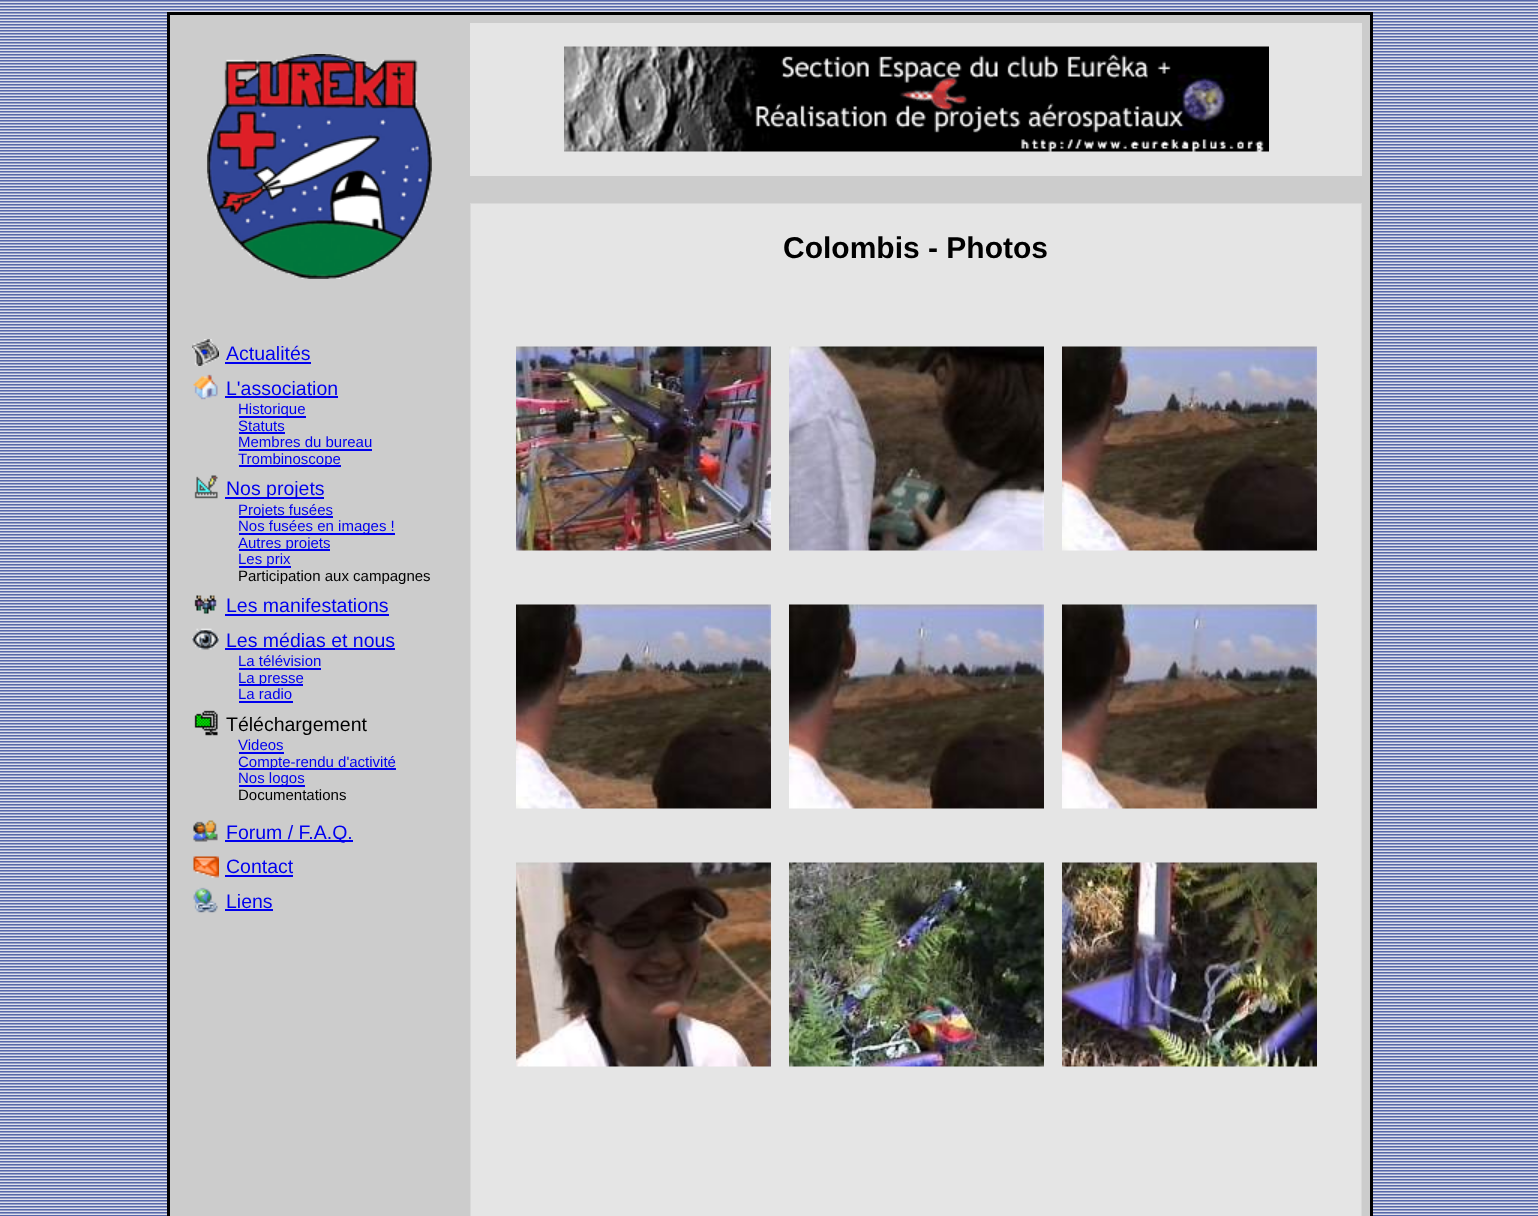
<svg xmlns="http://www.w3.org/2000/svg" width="1538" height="1216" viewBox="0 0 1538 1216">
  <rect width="100%" height="100%" fill="rgb(255,255,255)"/>
  <image x="0" y="0" width="1538" height="1216" href="pic1.png"/>
  <rect x="167" y="12" width="1206" height="1204" fill="rgb(0,0,0)"/>
  <rect x="170" y="15" width="1200" height="1201" fill="rgb(204,204,204)"/>
  <rect x="470" y="23" width="892" height="153" fill="rgb(229,229,229)"/>
  <image x="564" y="46" width="705" height="106" href="pic2.png"/>
  <rect x="470" y="203" width="892" height="1013" fill="rgb(217,217,217)"/>
  <rect x="471" y="204" width="890" height="1012" fill="rgb(229,229,229)"/>
  <text x="783" y="258" font-family="Liberation Sans" font-size="30" font-weight="bold" fill="rgb(0,0,0)">Colombis - Photos</text>
  <image x="516" y="346" width="255" height="205" href="pic3.png"/>
  <image x="789" y="346" width="255" height="205" href="pic4.png"/>
  <image x="1062" y="346" width="255" height="205" href="pic5.png"/>
  <image x="516" y="604" width="255" height="205" href="pic6.png"/>
  <image x="789" y="604" width="255" height="205" href="pic7.png"/>
  <image x="1062" y="604" width="255" height="205" href="pic8.png"/>
  <image x="516" y="862" width="255" height="205" href="pic9.png"/>
  <image x="789" y="862" width="255" height="205" href="pic10.png"/>
  <image x="1062" y="862" width="255" height="205" href="pic11.png"/>
  <image x="207" y="54" width="225" height="225" href="pic12.png"/>
  <image x="192" y="339" width="27" height="27" href="pic13.png"/>
  <text x="226" y="360" font-family="Liberation Sans" font-size="19.5" fill="rgb(0,0,238)">Actualités</text>
  <rect x="225" y="362" width="86" height="2" fill="rgb(0,0,238)"/>
  <image x="193" y="374" width="25" height="26" href="pic14.png"/>
  <text x="226" y="395" font-family="Liberation Sans" font-size="19.5" fill="rgb(0,0,238)">L'association</text>
  <rect x="225" y="396" width="113" height="2" fill="rgb(0,0,238)"/>
  <rect x="239" y="416" width="67" height="2" fill="rgb(0,0,238)"/>
  <g font-family="Liberation Sans" font-size="15" fill="rgb(0,0,238)">
    <text>
      <tspan x="238" y="414">Historique</tspan>
      <tspan x="238" y="431">Statuts</tspan>
    </text>
  </g>
  <rect x="239" y="432" width="46" height="2" fill="rgb(0,0,238)"/>
  <text x="238" y="447" font-family="Liberation Sans" font-size="15" fill="rgb(0,0,238)">Membres du bureau</text>
  <rect x="239" y="449" width="133" height="2" fill="rgb(0,0,238)"/>
  <rect x="239" y="465" width="102" height="2" fill="rgb(0,0,238)"/>
  <text x="238" y="464" font-family="Liberation Sans" font-size="15" fill="rgb(0,0,238)">Trombinoscope</text>
  <image x="194" y="475" width="24" height="24" href="pic15.png"/>
  <rect x="225" y="497" width="99" height="2" fill="rgb(0,0,238)"/>
  <text x="226" y="495" font-family="Liberation Sans" font-size="19.5" fill="rgb(0,0,238)">Nos projets</text>
  <rect x="239" y="516" width="94" height="2" fill="rgb(0,0,238)"/>
  <text x="238" y="515" font-family="Liberation Sans" font-size="15" fill="rgb(0,0,238)">Projets fusées</text>
  <rect x="239" y="533" width="156" height="2" fill="rgb(0,0,238)"/>
  <text x="238" y="531" font-family="Liberation Sans" font-size="15" fill="rgb(0,0,238)">Nos fusées en images !</text>
  <rect x="239" y="549" width="91" height="2" fill="rgb(0,0,238)"/>
  <text x="238" y="548" font-family="Liberation Sans" font-size="15" fill="rgb(0,0,238)">Autres projets</text>
  <rect x="239" y="566" width="52" height="2" fill="rgb(0,0,238)"/>
  <text x="238" y="564" font-family="Liberation Sans" font-size="15" fill="rgb(0,0,238)">Les prix</text>
  <text x="238" y="581" font-family="Liberation Sans" font-size="15" fill="rgb(0,0,0)">Participation aux campagnes</text>
  <image x="194" y="595" width="23" height="19" href="pic16.png"/>
  <text x="226" y="612" font-family="Liberation Sans" font-size="19.5" fill="rgb(0,0,238)">Les manifestations</text>
  <rect x="225" y="614" width="164" height="2" fill="rgb(0,0,238)"/>
  <image x="192" y="628" width="27" height="22" href="pic17.png"/>
  <text x="226" y="647" font-family="Liberation Sans" font-size="19.5" fill="rgb(0,0,238)">Les médias et nous</text>
  <rect x="225" y="648" width="170" height="2" fill="rgb(0,0,238)"/>
  <text x="238" y="666" font-family="Liberation Sans" font-size="15" fill="rgb(0,0,238)">La télévision</text>
  <rect x="239" y="668" width="82" height="2" fill="rgb(0,0,238)"/>
  <rect x="239" y="684" width="64" height="2" fill="rgb(0,0,238)"/>
  <g font-family="Liberation Sans" font-size="15" fill="rgb(0,0,238)">
    <text>
      <tspan x="238" y="683">La presse</tspan>
      <tspan x="238" y="699">La radio</tspan>
    </text>
  </g>
  <rect x="239" y="701" width="54" height="2" fill="rgb(0,0,238)"/>
  <image x="194" y="710" width="24" height="26" href="pic18.png"/>
  <text x="226" y="731" font-family="Liberation Sans" font-size="19.5" fill="rgb(0,0,0)">Téléchargement</text>
  <text x="238" y="750" font-family="Liberation Sans" font-size="15" fill="rgb(0,0,238)">Videos</text>
  <rect x="239" y="752" width="45" height="2" fill="rgb(0,0,238)"/>
  <rect x="239" y="768" width="157" height="2" fill="rgb(0,0,238)"/>
  <text x="238" y="767" font-family="Liberation Sans" font-size="15" fill="rgb(0,0,238)">Compte-rendu d'activité</text>
  <rect x="239" y="785" width="66" height="2" fill="rgb(0,0,238)"/>
  <text x="238" y="783" font-family="Liberation Sans" font-size="15" fill="rgb(0,0,238)">Nos logos</text>
  <text x="238" y="800" font-family="Liberation Sans" font-size="15" fill="rgb(0,0,0)">Documentations</text>
  <image x="193" y="820" width="25" height="22" href="pic19.png"/>
  <rect x="225" y="840" width="128" height="2" fill="rgb(0,0,238)"/>
  <text x="226" y="839" font-family="Liberation Sans" font-size="19.5" fill="rgb(0,0,238)">Forum / F.A.Q.</text>
  <image x="193" y="856" width="26" height="22" href="pic20.png"/>
  <text x="226" y="873" font-family="Liberation Sans" font-size="19.5" fill="rgb(0,0,238)">Contact</text>
  <rect x="225" y="875" width="68" height="2" fill="rgb(0,0,238)"/>
  <image x="193" y="887" width="25" height="26" href="pic21.png"/>
  <text x="226" y="908" font-family="Liberation Sans" font-size="19.5" fill="rgb(0,0,238)">Liens</text>
  <rect x="225" y="909" width="48" height="2" fill="rgb(0,0,238)"/>
</svg>
